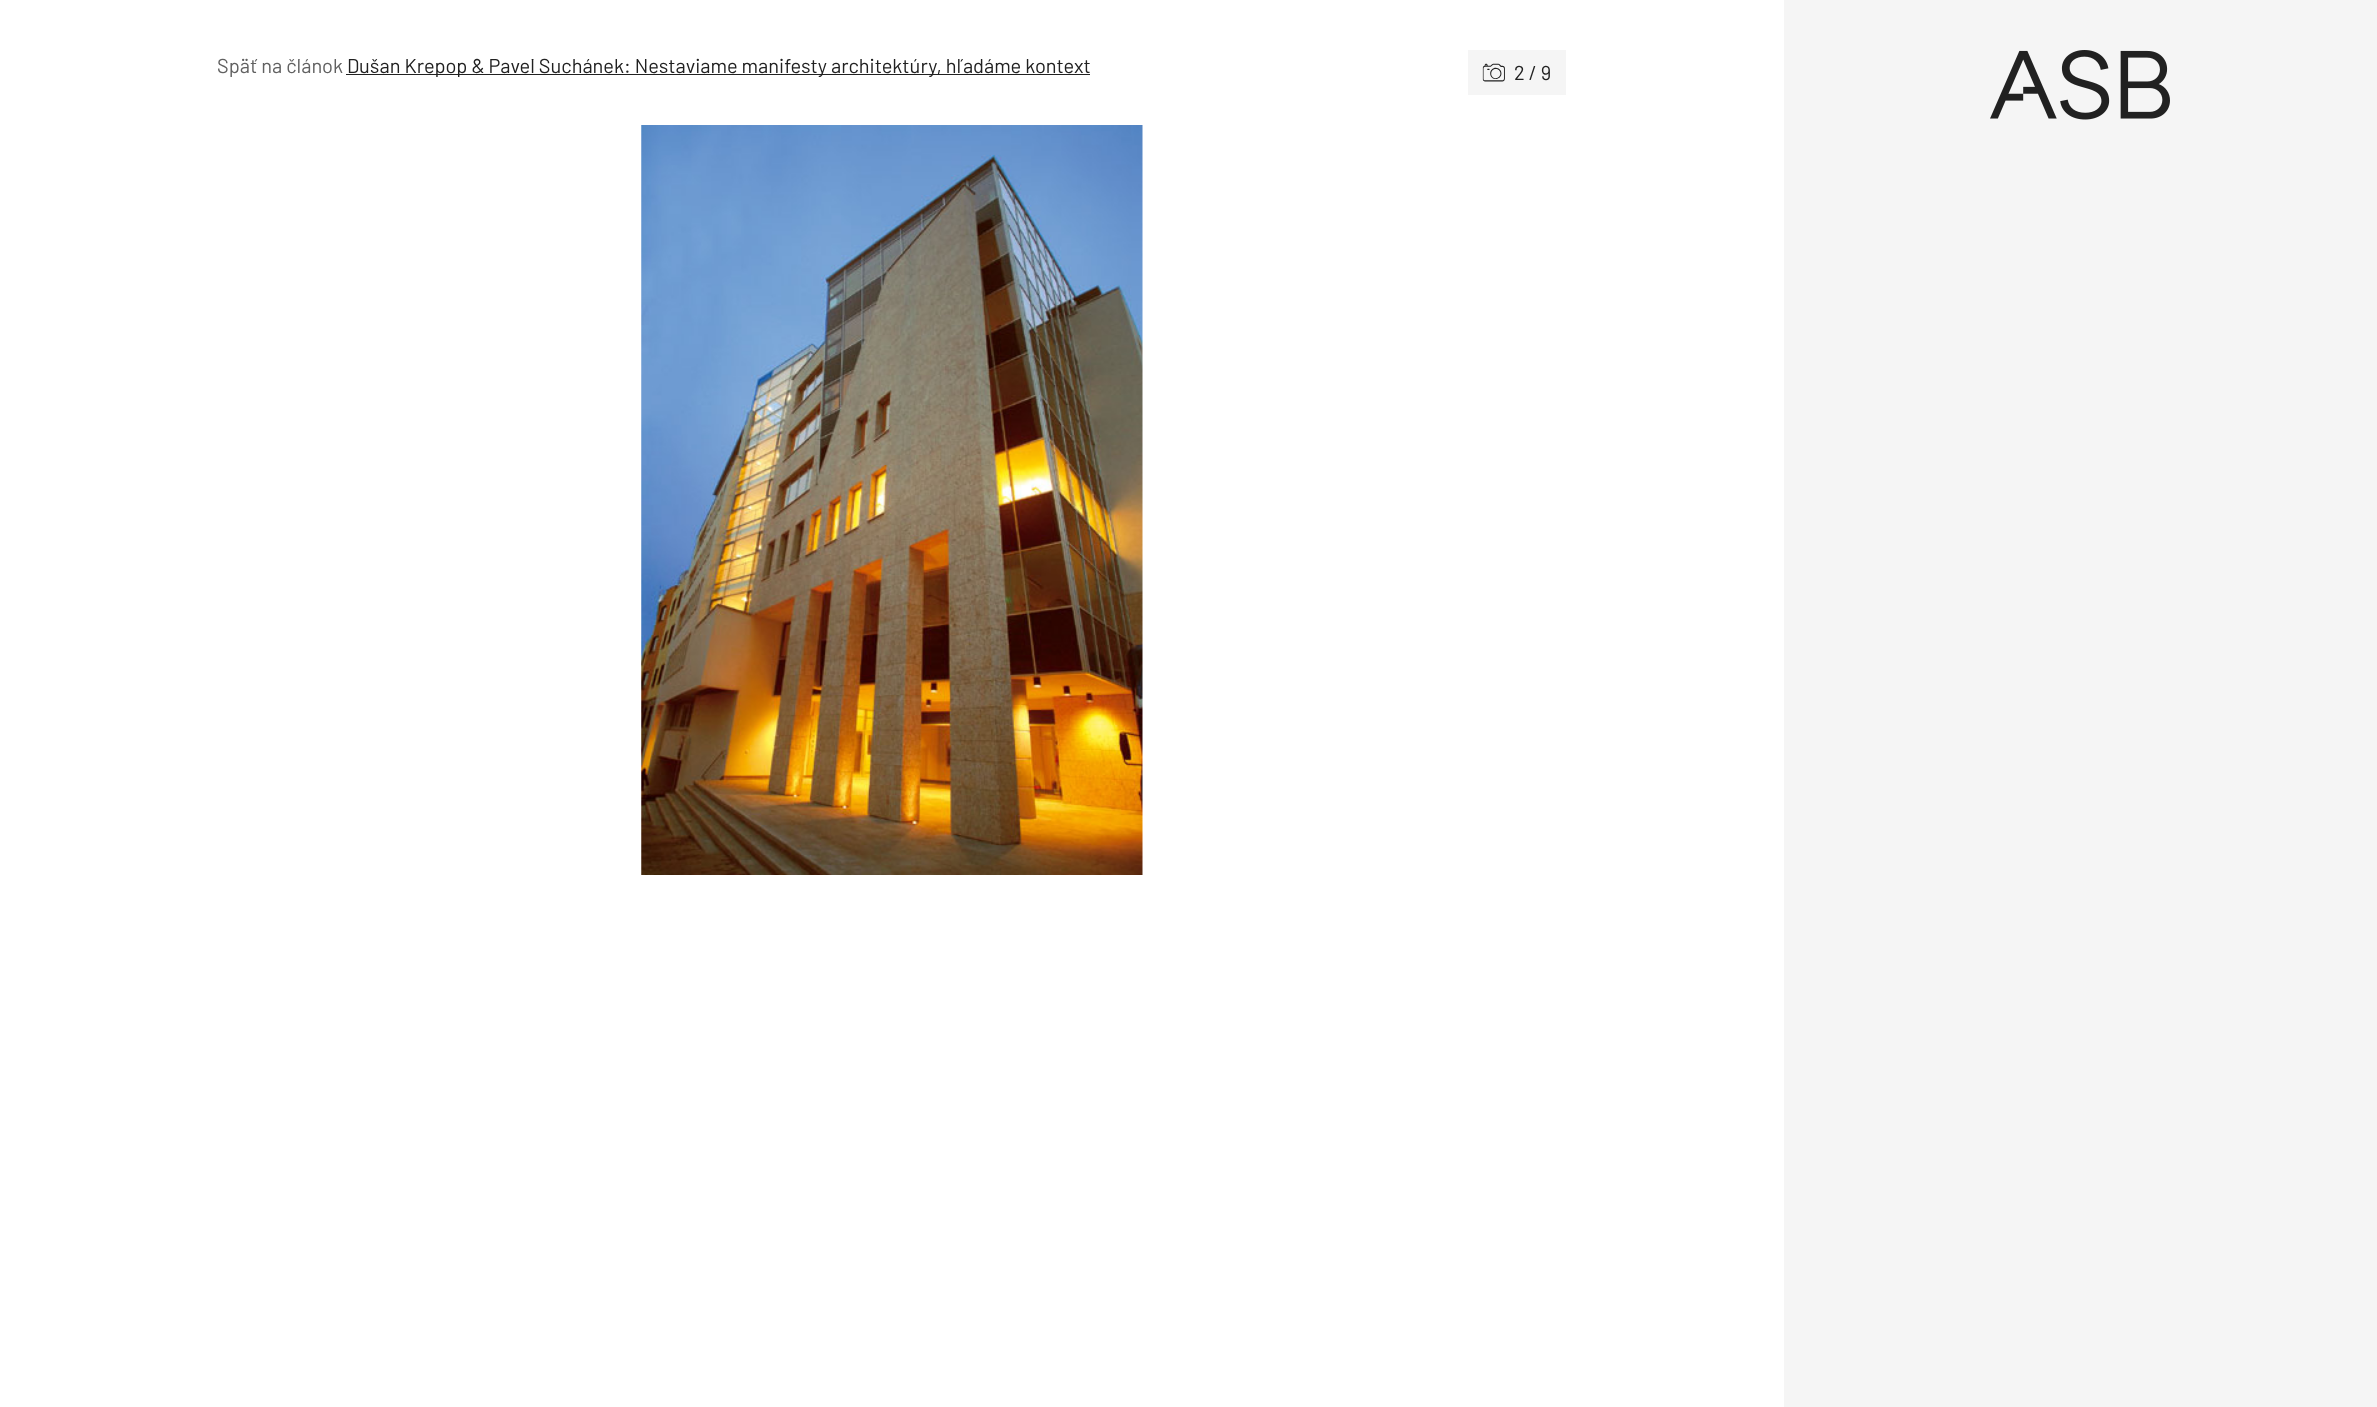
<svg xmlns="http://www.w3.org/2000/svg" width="2377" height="1407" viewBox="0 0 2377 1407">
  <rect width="100%" height="100%" fill="rgb(255,255,255)"/>
  <text x="217" y="73" font-family="Barlow" font-size="20" fill="rgb(97,97,97)">Späť na článok</text>
  <rect x="346" y="74" width="744" height="1" fill="rgb(33,33,33)"/>
  <text x="347" y="73" font-family="Barlow" font-size="20" fill="rgb(33,33,33)">Dušan Krepop &amp; Pavel Suchánek: Nestaviame manifesty architektúry, hľadáme kontext</text>
  <rect x="1468" y="50" width="98" height="45" fill="rgb(245,245,245)"/>
  <image x="1482" y="63" width="23" height="19" href="pic1.png"/>
  <text x="1514" y="80" font-family="Barlow" font-size="20" fill="rgb(33,33,33)">2 / 9</text>
  <image x="641" y="125" width="502" height="750" href="pic2.png"/>
  <rect x="1784" y="0" width="593" height="1407" fill="rgb(245,245,245)"/>
  <image x="1990" y="50" width="180" height="70" href="pic3.png"/>
</svg>
